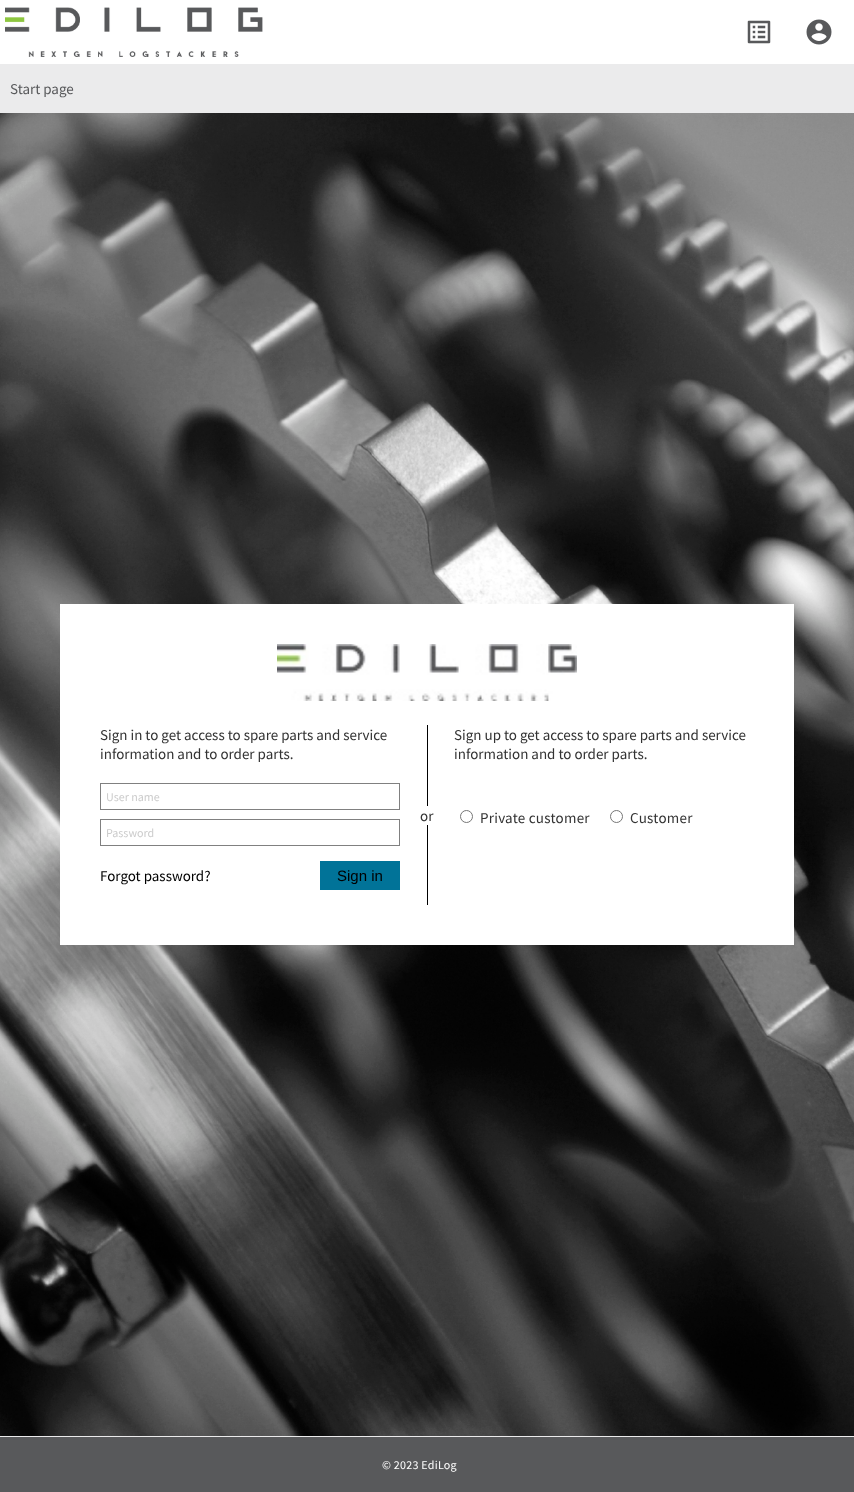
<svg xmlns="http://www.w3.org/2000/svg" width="854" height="1492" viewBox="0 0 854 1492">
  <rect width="100%" height="100%" fill="rgb(255,255,255)"/>
  <image x="5" y="7" width="258" height="50" href="pic1.png"/>
  <image x="747" y="20" width="24" height="24" href="pic2.png"/>
  <image x="806" y="19" width="26" height="26" href="pic3.png"/>
  <rect x="0" y="64" width="854" height="49" fill="rgb(235,235,236)"/>
  <text x="10" y="94" font-family="Source Sans Pro" font-size="15" fill="rgb(88,89,91)">Start page</text>
  <image x="0" y="113" width="854" height="1323" href="pic4.png"/>
  <rect x="60" y="604" width="734" height="341" fill="rgb(255,255,255)"/>
  <image x="277" y="644" width="300" height="57" href="pic5.png"/>
  <g font-family="Source Sans Pro" font-size="15" fill="rgb(51,51,51)">
    <text>
      <tspan x="100" y="740">Sign in to get access to spare parts and service</tspan>
      <tspan x="100" y="759">information and to order parts.</tspan>
    </text>
  </g>
  <rect x="100.5" y="783.5" width="299" height="26" fill="none" stroke="rgb(128,128,128)"/>
  <text x="106" y="801" font-family="Source Sans Pro" font-size="12" fill="rgb(204,204,204)">User name</text>
  <rect x="100.5" y="819.5" width="299" height="26" fill="none" stroke="rgb(128,128,128)"/>
  <text x="106" y="837" font-family="Source Sans Pro" font-size="12" fill="rgb(204,204,204)">Password</text>
  <text x="100" y="881" font-family="Source Sans Pro" font-size="15" fill="rgb(0,0,0)">Forgot password?</text>
  <rect x="320" y="861" width="80" height="29" fill="rgb(1,115,152)"/>
  <text x="337" y="881" font-family="Liberation Sans" font-size="15" fill="rgb(0,0,0)">Sign in</text>
  <rect x="427" y="725" width="1" height="81" fill="rgb(0,0,0)"/>
  <text x="420" y="821" font-family="Source Sans Pro" font-size="15" fill="rgb(51,51,51)">or</text>
  <rect x="427" y="825" width="1" height="80" fill="rgb(0,0,0)"/>
  <g font-family="Source Sans Pro" font-size="15" fill="rgb(51,51,51)">
    <text>
      <tspan x="454" y="740">Sign up to get access to spare parts and service</tspan>
      <tspan x="454" y="759">information and to order parts.</tspan>
    </text>
  </g>
  <circle cx="466.5" cy="816.5" r="6" fill="none" stroke="rgb(118,118,118)"/>
  <text x="480" y="823" font-family="Source Sans Pro" font-size="15" letter-spacing="0.25" fill="rgb(51,51,51)">Private customer</text>
  <circle cx="616.5" cy="816.5" r="6" fill="none" stroke="rgb(118,118,118)"/>
  <text x="630" y="823" font-family="Source Sans Pro" font-size="15" letter-spacing="0.25" fill="rgb(51,51,51)">Customer</text>
  <rect x="0" y="1437" width="854" height="55" fill="rgb(88,89,91)"/>
  <rect x="0" y="1436" width="854" height="1" fill="rgb(235,235,236)"/>
  <text x="382" y="1469" font-family="Source Sans Pro" font-size="12" letter-spacing="0.25" fill="rgb(255,255,255)">© 2023 EdiLog</text>
</svg>
